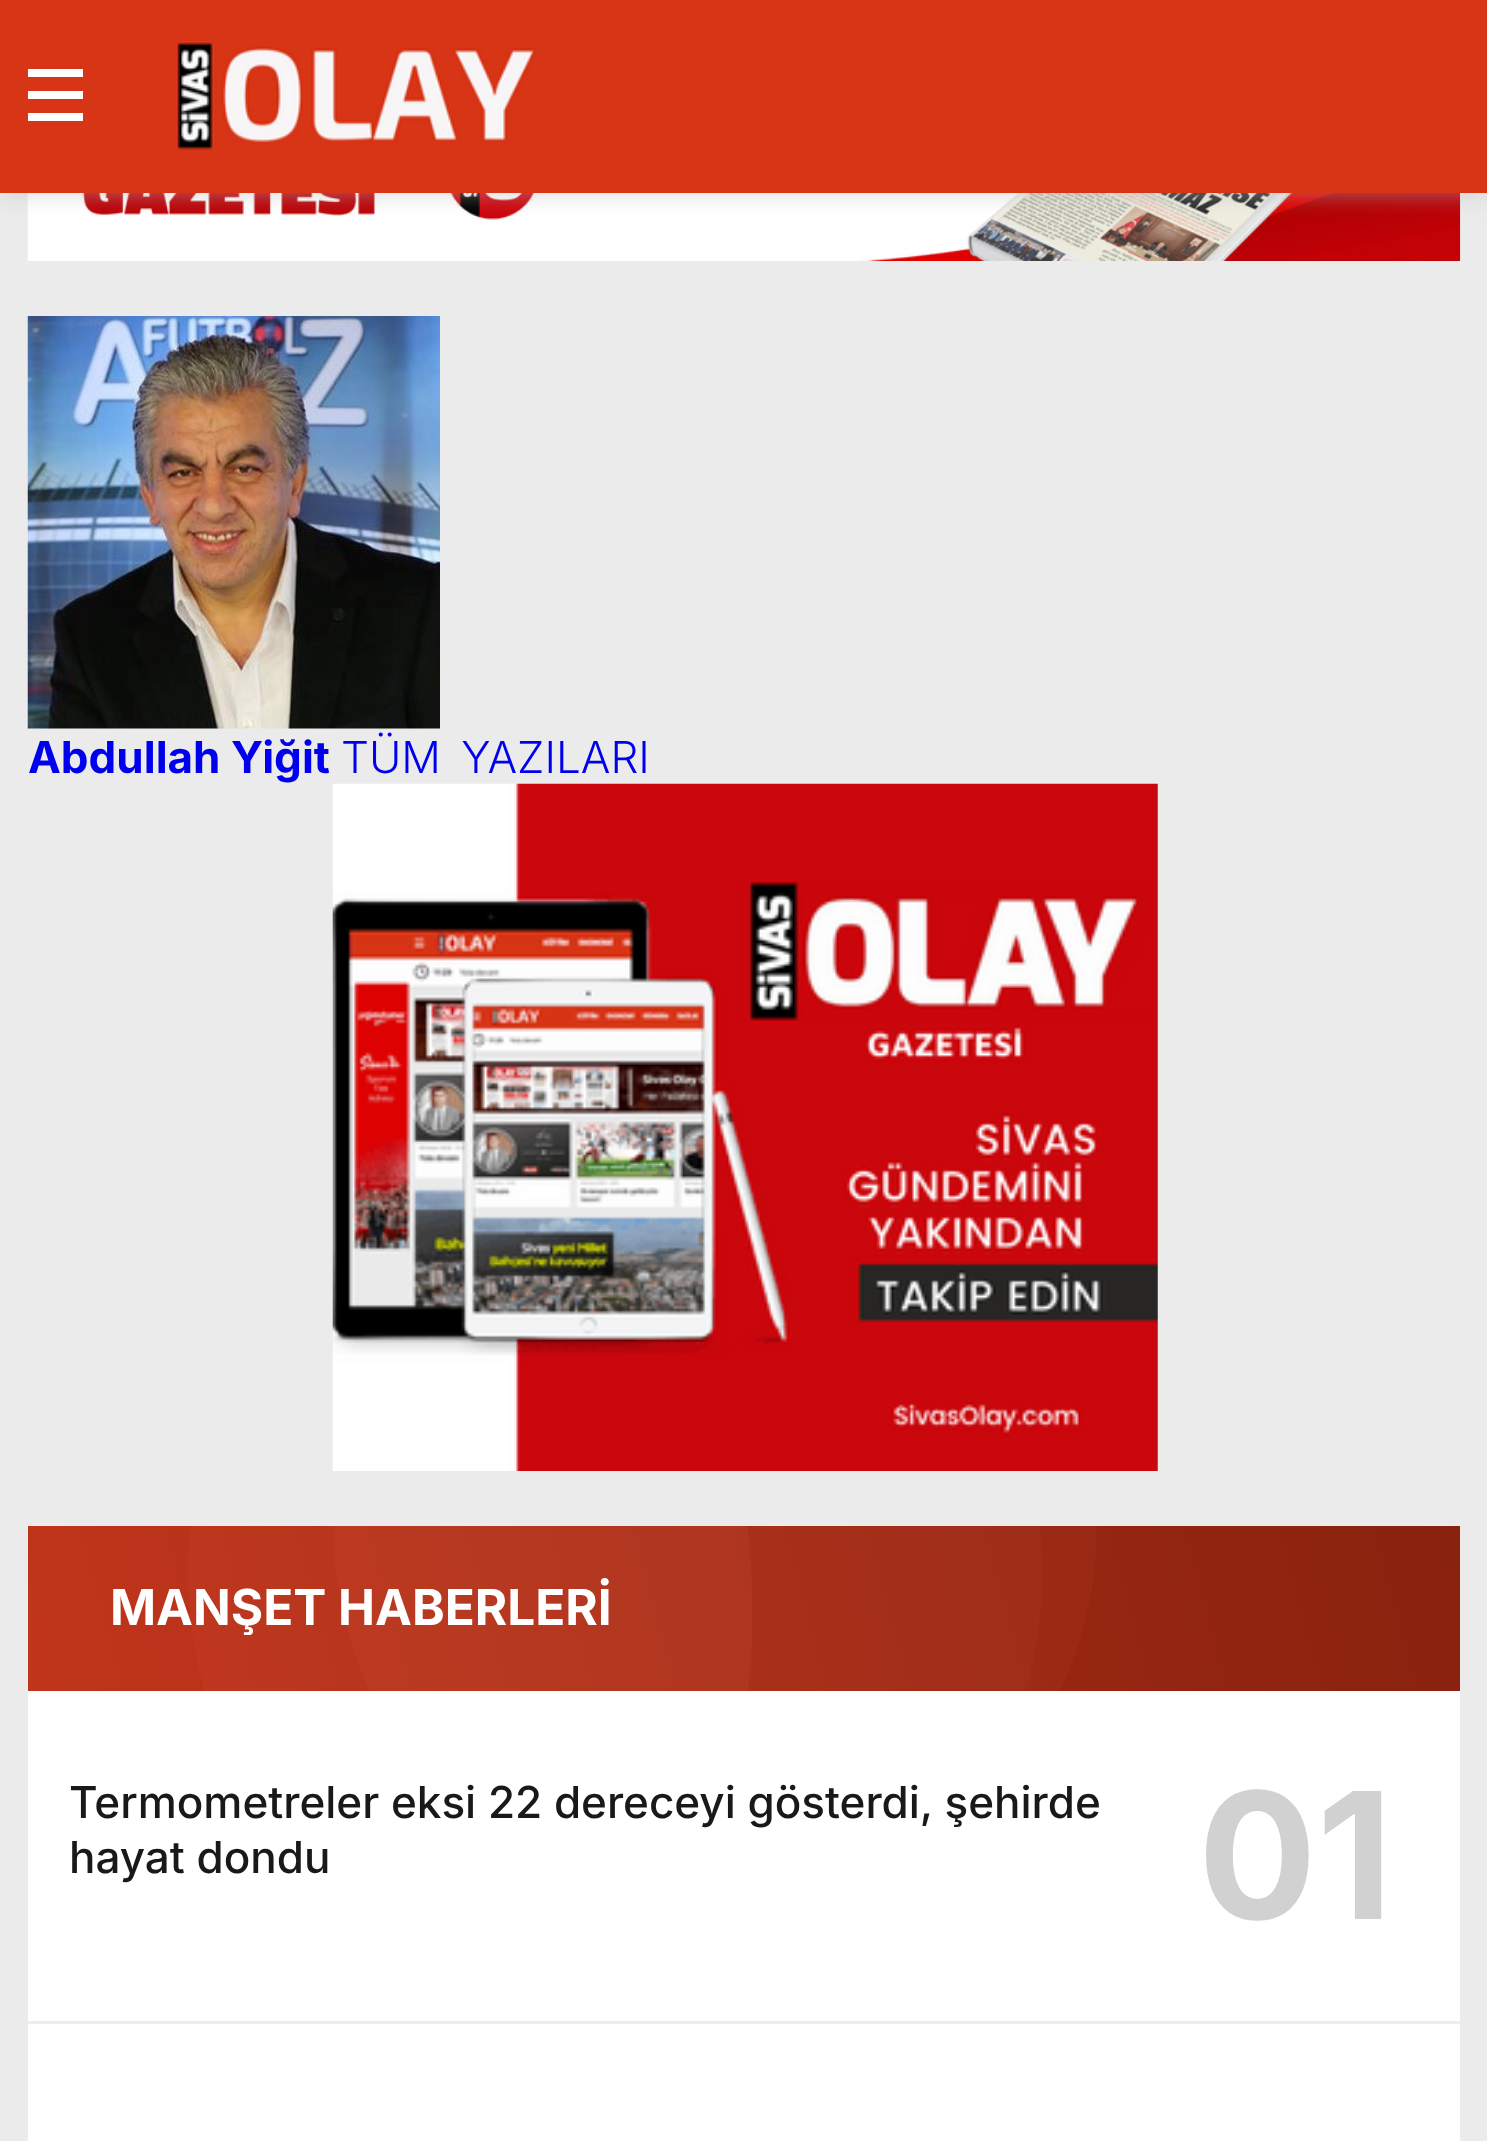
<svg xmlns="http://www.w3.org/2000/svg" width="1487" height="2141" viewBox="0 0 1487 2141">
  <defs>
    <linearGradient id="g1" gradientUnits="userSpaceOnUse" x1="1433" y1="1424" x2="55" y2="1793"><stop offset="0" stop-color="rgb(157,38,16)"/><stop offset="1" stop-color="rgb(215,53,22)"/></linearGradient>
    <radialGradient id="g2" gradientUnits="userSpaceOnUse" cx="715" cy="1528" r="763"><stop offset="0" stop-color="rgb(93,93,93)" stop-opacity="0.05"/><stop offset="0.5" stop-color="rgb(93,93,93)" stop-opacity="0.05"/><stop offset="0.5" stop-color="rgb(7,7,7)" stop-opacity="0.05"/><stop offset="1" stop-color="rgb(7,7,7)" stop-opacity="0.05"/></radialGradient>
    <radialGradient id="g3" gradientUnits="userSpaceOnUse" cx="615" cy="1572" r="854"><stop offset="0" stop-color="rgb(81,81,81)" stop-opacity="0.05"/><stop offset="0.5" stop-color="rgb(81,81,81)" stop-opacity="0.05"/><stop offset="0.5" stop-color="rgb(7,7,7)" stop-opacity="0.05"/><stop offset="1" stop-color="rgb(7,7,7)" stop-opacity="0.05"/></radialGradient>
    <radialGradient id="g4" gradientUnits="userSpaceOnUse" cx="42" cy="1612" r="1421"><stop offset="0" stop-color="rgb(139,139,139)" stop-opacity="0.05"/><stop offset="0.5" stop-color="rgb(139,139,139)" stop-opacity="0.05"/><stop offset="0.5" stop-color="rgb(21,21,21)" stop-opacity="0.05"/><stop offset="1" stop-color="rgb(21,21,21)" stop-opacity="0.05"/></radialGradient>
  </defs>
  <rect width="100%" height="100%" fill="rgb(235,235,235)"/>
  <image x="27" y="193" width="1434" height="68" href="pic2.png"/>
  <rect x="0" y="3" width="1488" height="192" fill="rgba(186,186,186,0.5)" filter="blur(11px)"/>
  <rect x="0" y="0" width="1487" height="193" fill="rgb(215,53,22)"/>
  <rect x="28" y="91" width="55" height="8" fill="rgb(255,255,255)"/>
  <rect x="28" y="69" width="55" height="8" fill="rgb(255,255,255)"/>
  <rect x="28" y="113" width="55" height="8" fill="rgb(255,255,255)"/>
  <image x="176" y="41" width="359" height="109" href="pic1.png"/>
  <image x="27" y="316" width="413" height="413" href="pic3.png"/>
  <text x="28" y="773" font-family="Inter" font-size="44" font-weight="bold" fill="rgb(0,0,238)">Abdullah Yiğit</text>
  <text x="341" y="773" word-spacing="8" font-family="Inter" font-size="44" font-weight="300" fill="rgb(0,0,238)">TÜM YAZILARI</text>
  <image x="332" y="783" width="826" height="688" href="pic4.png"/>
  <rect x="28" y="1691" width="1432" height="450" fill="rgb(255,255,255)"/>
  <rect x="28" y="1526" width="1432" height="165" fill="url(#g1)"/>
  <rect x="28" y="1526" width="1432" height="165" fill="url(#g2)"/>
  <rect x="28" y="1526" width="1432" height="165" fill="url(#g3)"/>
  <rect x="28" y="1526" width="1432" height="165" fill="url(#g4)"/>
  <text x="110" y="1625" font-family="Inter" font-size="49.5" font-weight="bold" fill="rgb(255,255,255)">MANŞET HABERLERİ</text>
  <rect x="28" y="2021" width="1432" height="3" fill="rgb(237,237,237)"/>
  <g font-family="Inter" font-size="44" font-weight="500" fill="rgb(25,25,25)">
    <text>
      <tspan x="69" y="1818">Termometreler eksi 22 dereceyi gösterdi, şehirde</tspan>
      <tspan x="69" y="1873">hayat dondu</tspan>
    </text>
  </g>
  <text x="1198" y="1919" font-family="Inter" font-size="176" font-weight="bold" fill="rgb(209,209,209)">01</text>
</svg>
